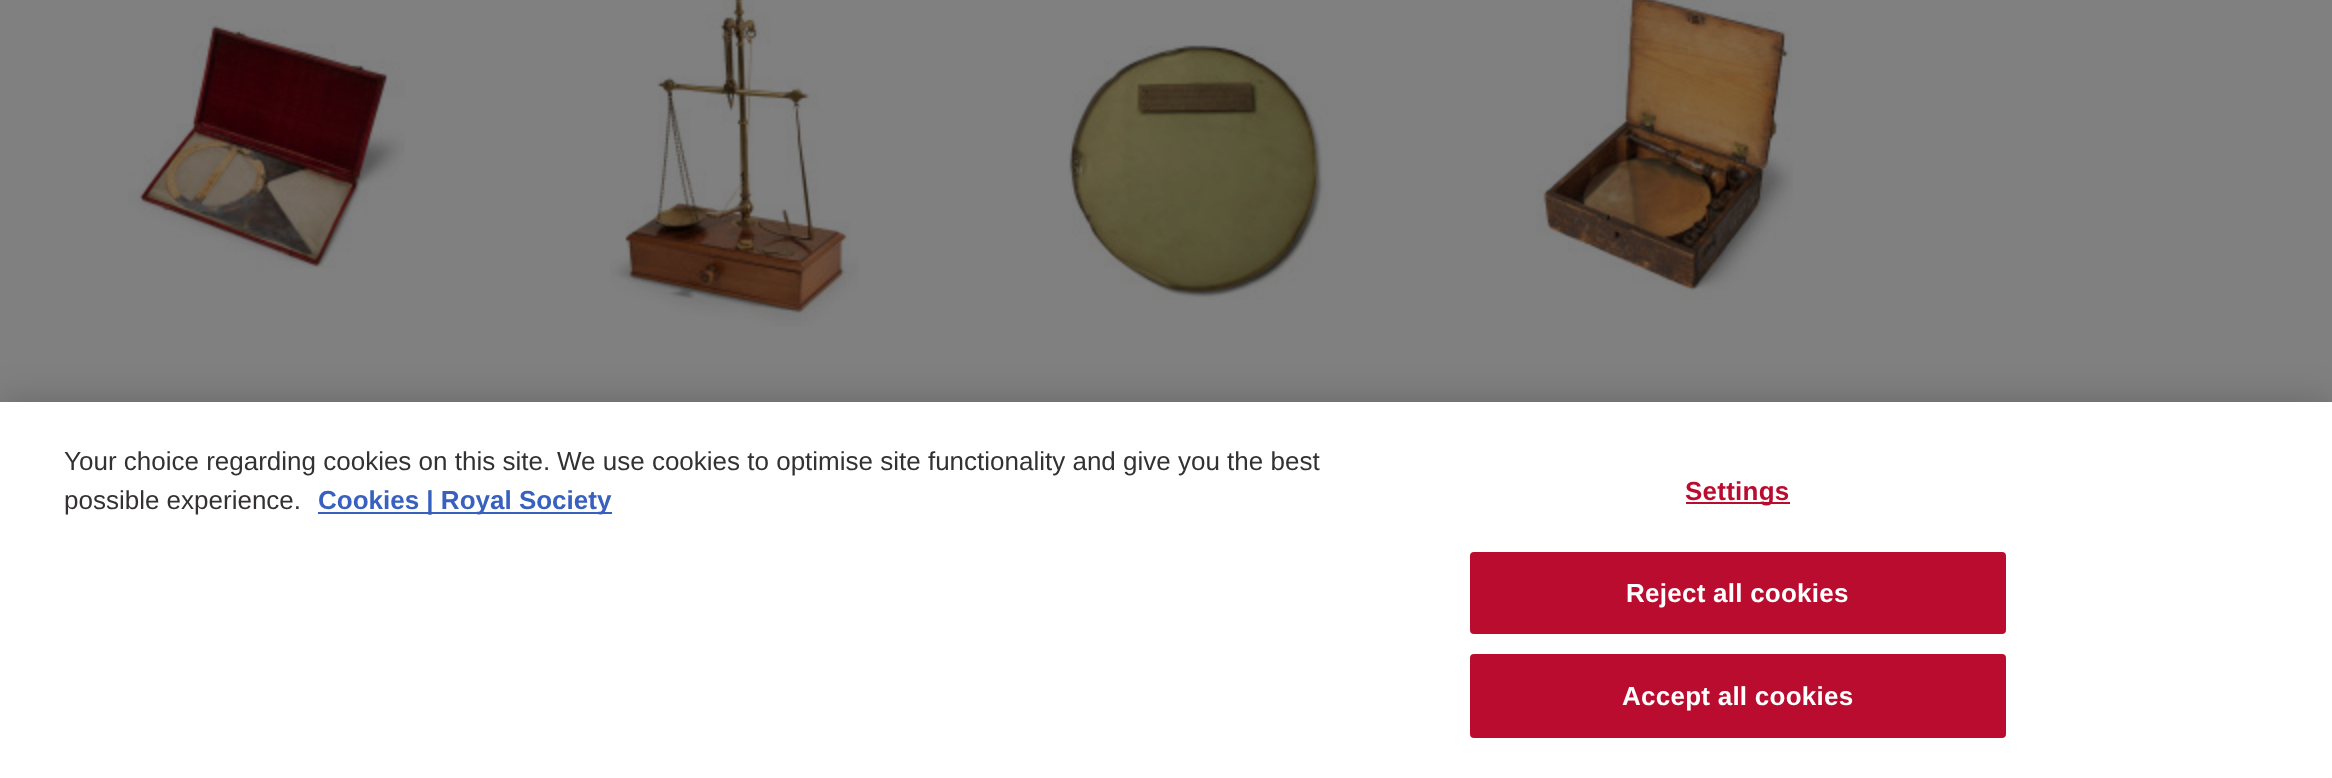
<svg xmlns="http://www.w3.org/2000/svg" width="2332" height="778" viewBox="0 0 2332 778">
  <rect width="100%" height="100%" fill="rgb(128,128,128)"/>
  <image x="128" y="16" width="277" height="253" href="pic1.png"/>
  <image x="610" y="0" width="249" height="327" href="pic2.png"/>
  <image x="1067" y="45" width="261" height="255" href="pic3.png"/>
  <image x="1536" y="0" width="257" height="300" href="pic4.png"/>
  <rect x="0" y="402" width="2332" height="376" fill="rgba(0,0,0,0.2)" filter="blur(18px)"/>
  <rect x="0" y="402" width="2332" height="376" fill="rgb(255,255,255)"/>
  <g font-family="Liberation Sans" font-size="26" fill="rgb(51,49,50)">
    <text x="64" y="470">Your choice regarding cookies on this site.</text>
    <text x="557" y="470">We use cookies to optimise site functionality and give you the best</text>
    <text x="64" y="509">possible experience.</text>
  </g>
  <rect x="318" y="512" width="294" height="2" fill="rgb(56,96,190)"/>
  <text x="318" y="509" font-family="Liberation Sans" font-size="26" font-weight="bold" fill="rgb(56,96,190)">Cookies | Royal Society</text>
  <rect x="1686" y="502" width="104" height="2" fill="rgb(186,12,47)"/>
  <text x="1685" y="500" font-family="Liberation Sans" font-size="26" font-weight="bold" letter-spacing="0.25" fill="rgb(186,12,47)">Settings</text>
  <rect x="1471" y="553" width="534" height="80" rx="3" fill="rgb(186,12,47)" stroke="rgb(186,12,47)" stroke-width="2"/>
  <text x="1626" y="602" font-family="Liberation Sans" font-size="26" font-weight="bold" letter-spacing="0.25" fill="rgb(255,255,255)">Reject all cookies</text>
  <rect x="1471" y="655" width="534" height="82" rx="3" fill="rgb(186,12,47)" stroke="rgb(186,12,47)" stroke-width="2"/>
  <text x="1622" y="705" font-family="Liberation Sans" font-size="26" font-weight="bold" letter-spacing="0.25" fill="rgb(255,255,255)">Accept all cookies</text>
</svg>
